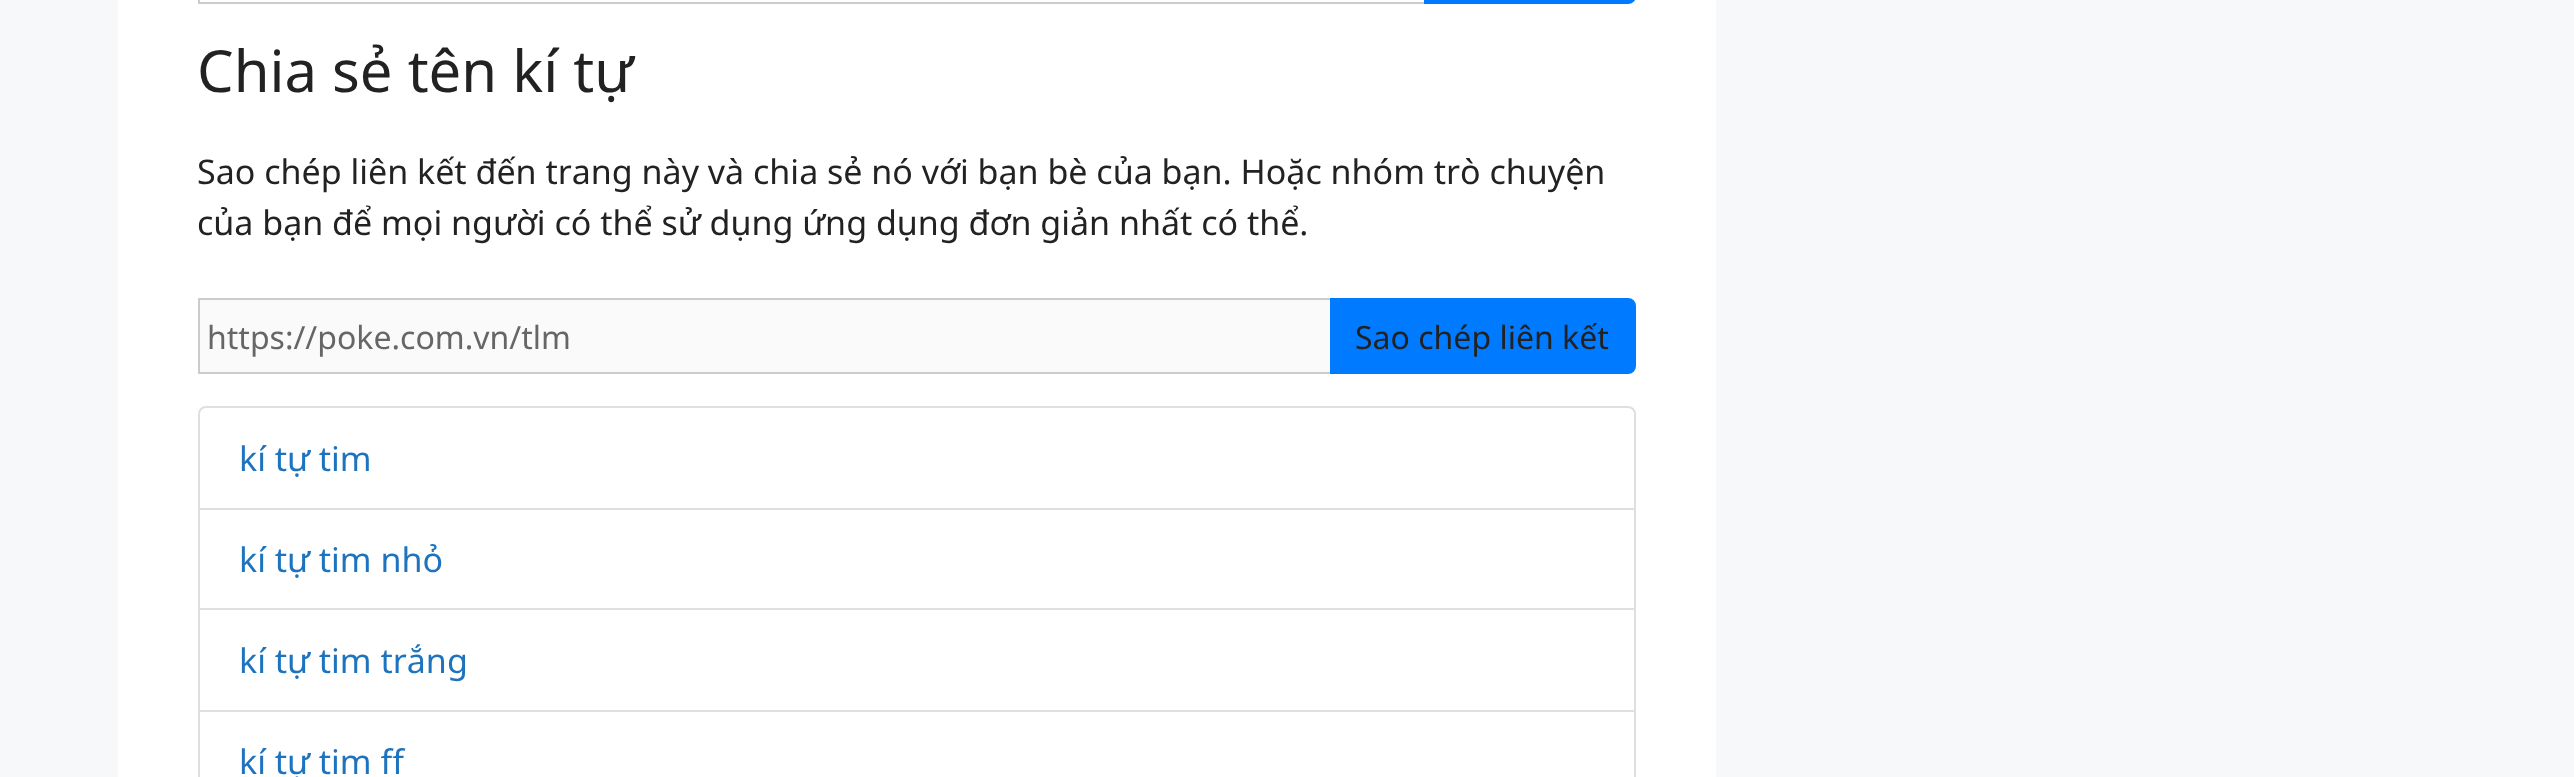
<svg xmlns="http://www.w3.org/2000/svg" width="2574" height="777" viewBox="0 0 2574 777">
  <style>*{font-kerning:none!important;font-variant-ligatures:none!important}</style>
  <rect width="100%" height="100%" fill="rgb(247,248,249)"/>
  <rect x="118" y="0" width="1598" height="777" fill="rgb(255,255,255)"/>
  <rect x="199" y="-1" width="1226" height="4" fill="none" stroke="rgb(204,204,204)" stroke-width="2"/>
  <path d="M1425-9H1628C1632-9 1635-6 1635-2V-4C1635 0 1632 3 1628 3H1425Z" fill="rgb(0,123,255)" stroke="rgb(0,123,255)" stroke-width="2"/>
  <text x="197" y="92" font-family="Noto Sans" font-size="58" fill="rgb(34,34,34)">Chia sẻ tên kí tự</text>
  <g font-family="Noto Sans" font-size="34" fill="rgb(34,34,34)">
    <text>
      <tspan x="197" y="184">Sao chép liên kết đến trang này và chia sẻ nó với bạn bè của bạn. Hoặc nhóm trò chuyện</tspan>
      <tspan x="197" y="235">của bạn để mọi người có thể sử dụng ứng dụng đơn giản nhất có thể.</tspan>
    </text>
  </g>
  <rect x="199" y="299" width="1132" height="74" fill="rgb(250,250,250)" stroke="rgb(204,204,204)" stroke-width="2"/>
  <text x="207" y="349" font-family="Noto Sans" font-size="32" fill="rgb(102,102,102)">https://poke.com.vn/tlm</text>
  <path d="M1331 299H1628C1632 299 1635 302 1635 306V366C1635 370 1632 373 1628 373H1331Z" fill="rgb(0,123,255)" stroke="rgb(0,123,255)" stroke-width="2"/>
  <text x="1355" y="349" font-family="Noto Sans" font-size="32" fill="rgb(34,34,34)">Sao chép liên kết</text>
  <path d="M206 407H1628C1632 407 1635 410 1635 414V509H199V414C199 410 202 407 206 407Z" fill="none" stroke="rgb(223,223,223)" stroke-width="2"/>
  <text x="239" y="471" font-family="Noto Sans" font-size="34" fill="rgb(30,115,190)">kí tự tim</text>
  <rect x="199" y="509" width="1436" height="100" fill="none" stroke="rgb(223,223,223)" stroke-width="2"/>
  <text x="239" y="572" font-family="Noto Sans" font-size="34" fill="rgb(30,115,190)">kí tự tim nhỏ</text>
  <rect x="199" y="609" width="1436" height="102" fill="none" stroke="rgb(223,223,223)" stroke-width="2"/>
  <text x="239" y="673" font-family="Noto Sans" font-size="34" fill="rgb(30,115,190)">kí tự tim trắng</text>
  <rect x="199" y="711" width="1436" height="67" fill="none" stroke="rgb(223,223,223)" stroke-width="2"/>
  <text x="239" y="774" font-family="Noto Sans" font-size="34" fill="rgb(30,115,190)">kí tự tim ff</text>
</svg>
